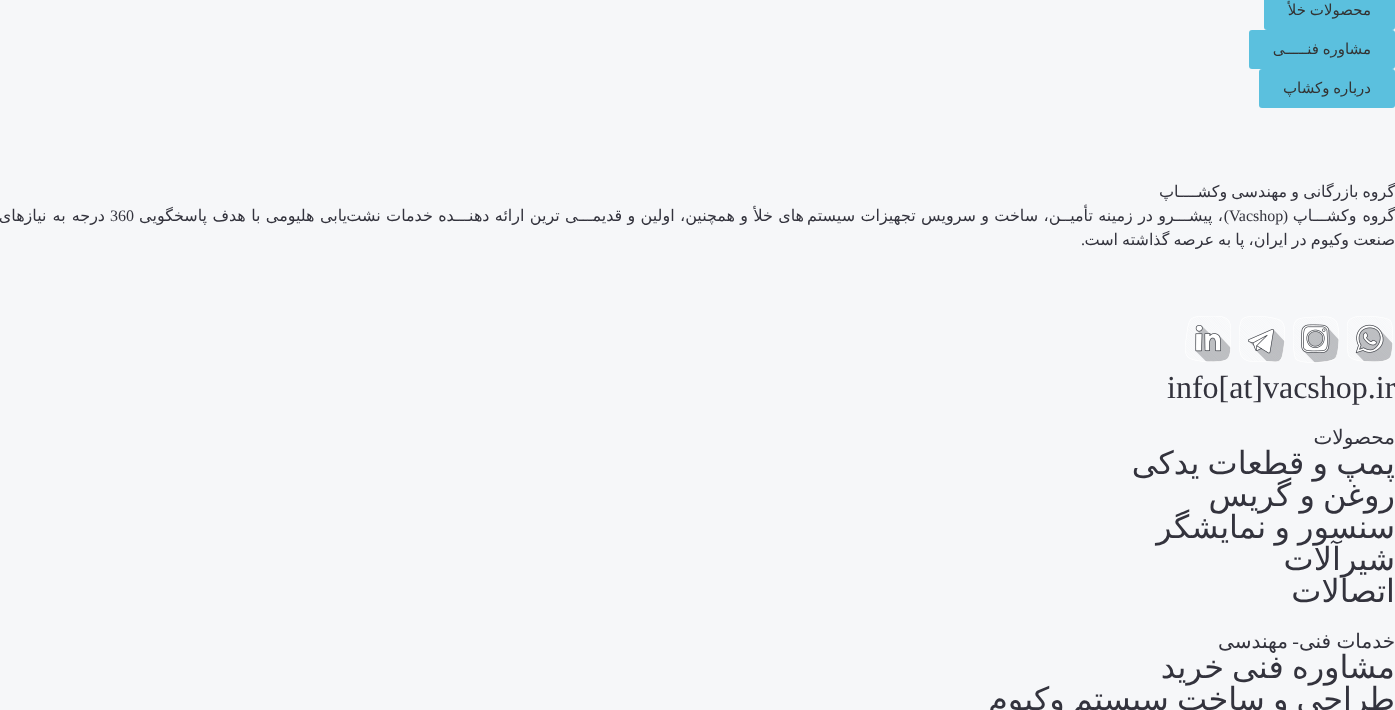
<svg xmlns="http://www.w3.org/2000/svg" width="1395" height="710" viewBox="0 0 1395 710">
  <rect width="100%" height="100%" fill="rgb(246,247,249)"/>
  <rect x="1264" y="-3" width="131" height="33" rx="3" fill="rgb(91,192,222)"/>
  <text x="1371" y="15" word-spacing="-1" font-family="DejaVu Sans" font-size="15" direction="rtl" fill="rgb(51,51,51)">محصولات خلأ</text>
  <rect x="1249" y="30" width="146" height="39" rx="3" fill="rgb(91,192,222)"/>
  <text x="1371" y="54" word-spacing="-1" font-family="DejaVu Sans" font-size="15" direction="rtl" fill="rgb(51,51,51)">مشاوره فنـــــی</text>
  <rect x="1259" y="69" width="136" height="39" rx="3" fill="rgb(91,192,222)"/>
  <text x="1371" y="93" word-spacing="-1" font-family="DejaVu Sans" font-size="15" direction="rtl" fill="rgb(51,51,51)">درباره وکشاپ</text>
  <g font-family="DejaVu Sans" font-size="16" direction="rtl" fill="rgb(51,51,61)">
    <text x="1395" y="197" word-spacing="-1">گروه بازرگانی</text>
    <text x="1299" y="197" word-spacing="-1">و مهندسی وکشــــاپ</text>
    <text x="1395" y="221" word-spacing="1">گروه وکشـــاپ</text>
  </g>
  <g font-family="Liberation Serif" font-size="16" direction="rtl" fill="rgb(51,51,61)">
    <text x="1288" y="221">(</text>
    <text x="1229" y="221">)</text>
  </g>
  <text x="1229" y="221" font-family="Liberation Serif" font-size="16" fill="rgb(51,51,61)">Vacshop</text>
  <g font-family="DejaVu Sans" font-size="16" direction="rtl" fill="rgb(51,51,61)">
    <text x="1223" y="221" word-spacing="0.25">، پیشـــرو در زمینه تأمیــن، ساخت و سرویس تجهیزات سیستم</text>
    <text x="804" y="221" word-spacing="0.25">های خلأ و همچنین، اولین و قدیمـــی ترین ارائه دهنـــده خدمات نشت</text>
    <text x="347" y="221" word-spacing="0.25">یابی هلیومی با هدف پاسخگویی</text>
  </g>
  <text x="110" y="221" font-family="Liberation Serif" font-size="16" fill="rgb(51,51,61)">360</text>
  <g font-family="DejaVu Sans" font-size="16" direction="rtl" fill="rgb(51,51,61)">
    <text x="105" y="221" word-spacing="1">درجه به نیازهای</text>
    <text x="1395" y="245" word-spacing="-1">صنعت وکیوم در ایران، پا به عرصه گذاشته است</text>
  </g>
  <text x="1085" y="245" font-family="Liberation Serif" font-size="16" direction="rtl" fill="rgb(51,51,61)">.</text>
  <image x="1347" y="316" width="46" height="46" href="pic1.png"/>
  <image x="1293" y="316" width="46" height="47" href="pic2.png"/>
  <image x="1239" y="316" width="46" height="46" href="pic3.png"/>
  <image x="1185" y="316" width="46" height="46" href="pic4.png"/>
  <text x="1167" y="398" font-family="Liberation Serif" font-size="32" fill="rgb(51,51,61)">info[at]vacshop.ir</text>
  <text x="1395" y="444" font-family="DejaVu Sans" font-size="20" direction="rtl" fill="rgb(51,51,61)">محصولات</text>
  <g font-family="DejaVu Sans" font-size="32" direction="rtl" fill="rgb(51,51,61)">
    <text>
      <tspan x="1395" y="474" word-spacing="-2">پمپ و قطعات یدکی</tspan>
      <tspan x="1395" y="506" word-spacing="-2">روغن و گریس</tspan>
      <tspan x="1395" y="538" word-spacing="-2">سنسور و نمایشگر</tspan>
      <tspan x="1395" y="570">شیرآلات</tspan>
      <tspan x="1395" y="602">اتصالات</tspan>
    </text>
  </g>
  <text x="1395" y="648" word-spacing="-1" font-family="DejaVu Sans" font-size="20" direction="rtl" fill="rgb(51,51,61)">خدمات فنی</text>
  <text x="1299" y="648" font-family="Liberation Serif" font-size="20" direction="rtl" fill="rgb(51,51,61)">-</text>
  <text x="1288" y="648" font-family="DejaVu Sans" font-size="20" direction="rtl" fill="rgb(51,51,61)">مهندسی</text>
  <g font-family="DejaVu Sans" font-size="32" direction="rtl" fill="rgb(51,51,61)">
    <text>
      <tspan x="1395" y="678" word-spacing="-2">مشاوره فنی خرید</tspan>
      <tspan x="1395" y="710" word-spacing="-2">طراحی و ساخت سیستم وکیوم</tspan>
    </text>
  </g>
</svg>
